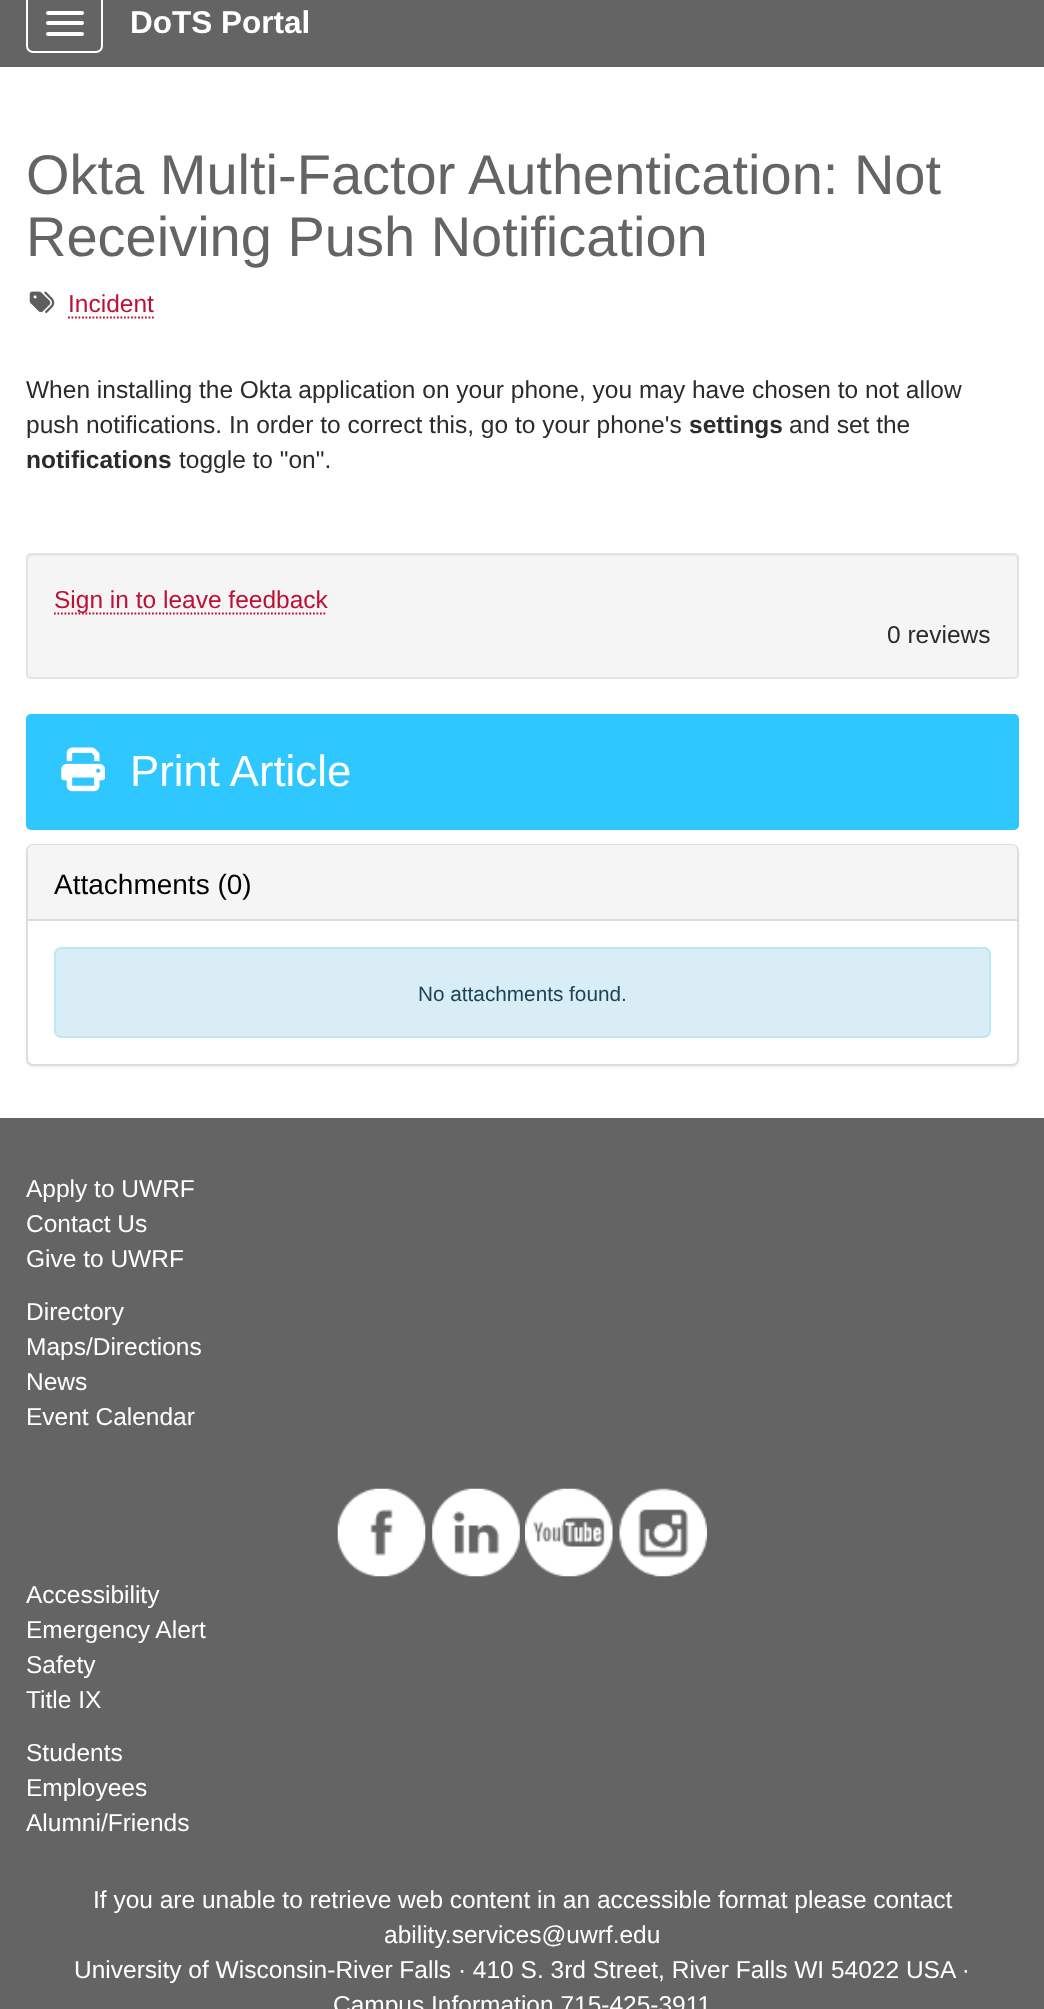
<svg xmlns="http://www.w3.org/2000/svg" width="1044" height="2009" viewBox="0 0 1044 2009">
  <rect width="100%" height="100%" fill="rgb(255,255,255)"/>
  <rect x="0" y="0" width="1044" height="67" fill="rgb(100,100,100)"/>
  <rect x="27" y="-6" width="75" height="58" rx="6" fill="none" stroke="rgb(255,255,255)" stroke-width="2"/>
  <rect x="46" y="11" width="38" height="4" rx="2" fill="rgb(255,255,255)"/>
  <rect x="46" y="21" width="38" height="4" rx="2" fill="rgb(255,255,255)"/>
  <rect x="46" y="32" width="38" height="4" rx="2" fill="rgb(255,255,255)"/>
  <text x="130" y="33" font-family="Liberation Sans" font-size="31.5" font-weight="bold" fill="rgb(255,255,255)">DoTS Portal</text>
  <g font-family="Liberation Sans" font-size="56" fill="rgb(100,100,100)">
    <text>
      <tspan x="26" y="194">Okta Multi-Factor Authentication: Not</tspan>
      <tspan x="26" y="256">Receiving Push Notification</tspan>
    </text>
  </g>
  <image x="29" y="291" width="26" height="22" href="pic1.png"/>
  <text x="68" y="312" font-family="Liberation Sans" font-size="24.5" fill="rgb(190,15,52)">Incident</text>
  <path d="M68 317.5H154" fill="none" stroke="rgb(190,15,52)" stroke-width="1.8" stroke-dasharray="1.75 1.75"/>
  <g font-family="Liberation Sans" font-size="24.5" fill="rgb(43,43,43)">
    <text>
      <tspan x="26" y="398">When installing the Okta application on your phone, you may have chosen to not allow</tspan>
      <tspan x="26" y="433">push notifications. In order to correct this, go to your phone's</tspan>
    </text>
  </g>
  <text x="689" y="433" font-family="Liberation Sans" font-size="24.5" font-weight="bold" fill="rgb(43,43,43)">settings</text>
  <text x="789" y="433" font-family="Liberation Sans" font-size="24.5" fill="rgb(43,43,43)">and set the</text>
  <text x="26" y="468" font-family="Liberation Sans" font-size="24.5" font-weight="bold" fill="rgb(43,43,43)">notifications</text>
  <text x="179" y="468" font-family="Liberation Sans" font-size="24.5" fill="rgb(43,43,43)">toggle to "on".</text>
  <rect x="26" y="553" width="993" height="126" rx="5" fill="rgb(245,245,245)"/>
  <path d="M32 556H1013C1015 556 1017 558 1017 560C1017 557 1016 555 1013 555H32C29 555 28 557 28 560C28 558 30 556 32 556Z" fill="rgb(233,233,233)"/>
  <rect x="27" y="554" width="991" height="124" rx="4" fill="none" stroke="rgb(227,227,227)" stroke-width="2"/>
  <path d="M54 613.5H327" fill="none" stroke="rgb(190,15,52)" stroke-width="1.8" stroke-dasharray="1.75 1.75"/>
  <text x="54" y="608" font-family="Liberation Sans" font-size="24.5" fill="rgb(190,15,52)">Sign in to leave feedback</text>
  <text x="887" y="643" font-family="Liberation Sans" font-size="24.5" fill="rgb(43,43,43)">0 reviews</text>
  <rect x="26" y="714" width="993" height="116" rx="5" fill="rgb(46,199,255)"/>
  <image x="61" y="747" width="44" height="45" href="pic2.png"/>
  <text x="130" y="786" font-family="Liberation Sans" font-size="43.75" fill="rgb(255,255,255)">Print Article</text>
  <rect x="26" y="845" width="993" height="223" rx="7" fill="rgba(0,0,0,0.05)" filter="blur(1px)"/>
  <rect x="27" y="845" width="991" height="220" rx="6" fill="rgb(255,255,255)" stroke="rgb(221,221,221)" stroke-width="2"/>
  <path d="M33 845H1012C1015 845 1017 847 1017 850V921H28V850C28 847 30 845 33 845Z" fill="rgb(245,245,245)"/>
  <rect x="28" y="919" width="989" height="2" fill="rgb(221,221,221)"/>
  <text x="54" y="894" font-family="Liberation Sans" font-size="28" fill="rgb(0,0,0)">Attachments (0)</text>
  <rect x="55" y="948" width="935" height="89" rx="6" fill="rgb(217,237,247)" stroke="rgb(188,232,241)" stroke-width="2"/>
  <text x="418" y="1001" font-family="Liberation Sans" font-size="20.75" fill="rgb(29,67,86)">No attachments found.</text>
  <rect x="0" y="1118" width="1044" height="891" fill="rgb(100,100,100)"/>
  <g font-family="Liberation Sans" font-size="24.5" fill="rgb(255,255,255)">
    <text>
      <tspan x="26" y="1197">Apply to UWRF</tspan>
      <tspan x="26" y="1232">Contact Us</tspan>
      <tspan x="26" y="1267">Give to UWRF</tspan>
    </text>
    <text>
      <tspan x="26" y="1320">Directory</tspan>
      <tspan x="26" y="1355">Maps/Directions</tspan>
      <tspan x="26" y="1390">News</tspan>
      <tspan x="26" y="1425">Event Calendar</tspan>
    </text>
  </g>
  <image x="337" y="1488" width="89" height="89" href="pic3.png"/>
  <image x="432" y="1488" width="88" height="89" href="pic4.png"/>
  <image x="525" y="1488" width="88" height="89" href="pic5.png"/>
  <image x="619" y="1488" width="88" height="89" href="pic6.png"/>
  <g font-family="Liberation Sans" font-size="24.5" fill="rgb(255,255,255)">
    <text>
      <tspan x="26" y="1603">Accessibility</tspan>
      <tspan x="26" y="1638">Emergency Alert</tspan>
      <tspan x="26" y="1673">Safety</tspan>
      <tspan x="26" y="1708">Title IX</tspan>
    </text>
    <text>
      <tspan x="26" y="1761">Students</tspan>
      <tspan x="26" y="1796">Employees</tspan>
      <tspan x="26" y="1831">Alumni/Friends</tspan>
    </text>
    <text x="93" y="1908">If you are unable to retrieve web content in an accessible format please contact</text>
    <text x="384" y="1943">ability.services@uwrf.edu</text>
    <text x="74" y="1978">University of Wisconsin-River Falls · 410 S. 3rd Street, River Falls WI 54022 USA ·</text>
    <text x="333" y="2013">Campus Information 715-425-3911</text>
  </g>
</svg>
